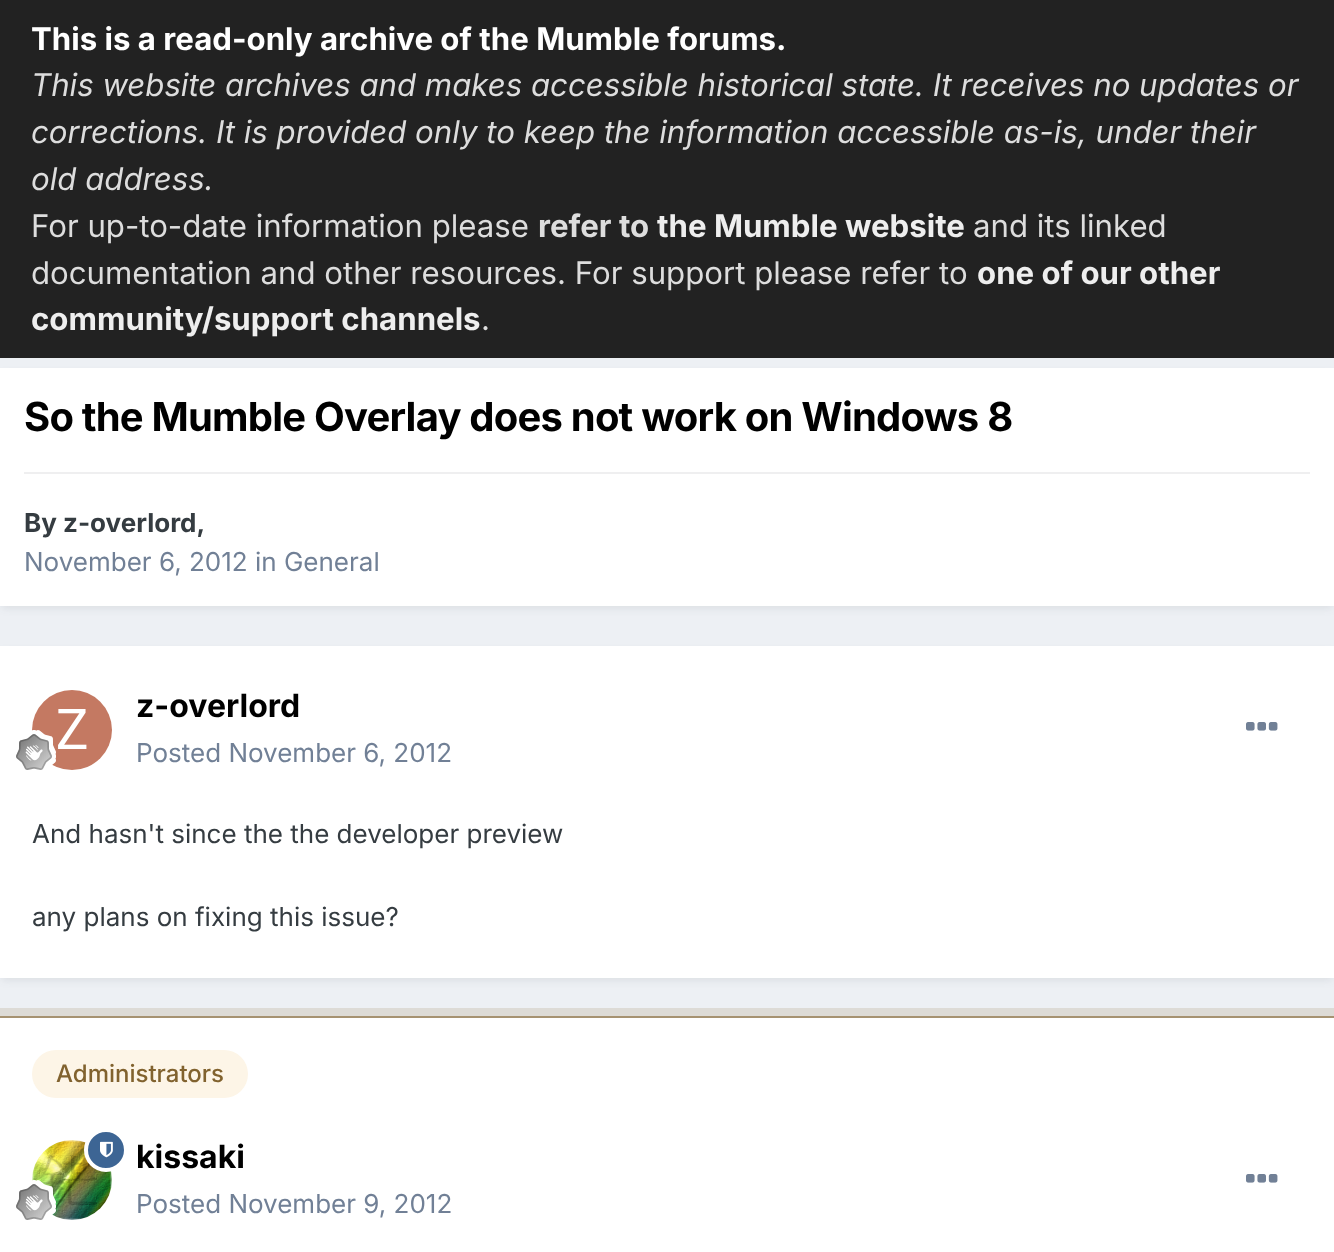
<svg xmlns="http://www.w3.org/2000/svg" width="1334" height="1252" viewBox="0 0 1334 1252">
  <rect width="100%" height="100%" fill="rgb(237,240,244)"/>
  <rect x="0" y="0" width="1334" height="358" fill="rgb(34,34,34)"/>
  <text x="31" y="50" font-family="Inter" font-size="31.2" font-weight="bold" fill="rgb(255,255,255)">This is a read-only archive of the Mumble forums.</text>
  <g font-family="Inter" font-size="31.2" font-style="italic" fill="rgb(221,221,221)">
    <text>
      <tspan x="31" y="96">This website archives and makes accessible historical state. It receives no updates or</tspan>
      <tspan x="31" y="143">corrections. It is provided only to keep the information accessible as-is, under their</tspan>
      <tspan x="31" y="190">old address.</tspan>
    </text>
  </g>
  <text x="31" y="237" font-family="Inter" font-size="31.2" fill="rgb(221,221,221)">For up-to-date information please</text>
  <text x="538" y="237" font-family="Inter" font-size="31.2" font-weight="bold" fill="rgb(221,221,221)">refer to</text>
  <text x="657" y="237" font-family="Inter" font-size="31.2" font-weight="bold" fill="rgb(238,238,238)">the Mumble website</text>
  <g font-family="Inter" font-size="31.2" fill="rgb(221,221,221)">
    <text x="973" y="237">and its linked</text>
    <text x="31" y="284">documentation and other resources. For support please refer to</text>
  </g>
  <g font-family="Inter" font-size="31.2" font-weight="bold" fill="rgb(238,238,238)">
    <text x="977" y="284">one of our other</text>
    <text x="31" y="330">community/support channels</text>
  </g>
  <text x="481" y="330" font-family="Inter" font-size="31.2" fill="rgb(221,221,221)">.</text>
  <rect x="2" y="374" width="1330" height="234" fill="rgba(45,55,72,0.1)" filter="blur(4px)"/>
  <rect x="0" y="368" width="1334" height="238" fill="rgb(255,255,255)"/>
  <text x="24" y="431" font-family="Inter" font-size="40" font-weight="bold" letter-spacing="-0.8" fill="rgb(0,0,0)">So the Mumble Overlay does not work on Windows 8</text>
  <rect x="24" y="472" width="1286" height="2" fill="rgb(239,239,240)"/>
  <text x="24" y="532" font-family="Inter" font-size="26" font-weight="bold" fill="rgb(53,60,65)">By z-overlord,</text>
  <text x="24" y="571" font-family="Inter" font-size="26" fill="rgb(113,128,150)">November 6, 2012 in General</text>
  <rect x="2" y="652" width="1330" height="328" fill="rgba(45,55,72,0.1)" filter="blur(4px)"/>
  <rect x="0" y="646" width="1334" height="332" fill="rgb(255,255,255)"/>
  <image x="32" y="690" width="80" height="80" href="pic1.png"/>
  <image x="16" y="730" width="40" height="40" href="pic2.png"/>
  <text x="136" y="717" font-family="Inter" font-size="32" font-weight="bold" fill="rgb(0,0,0)">z-overlord</text>
  <text x="136" y="762" font-family="Inter" font-size="26" fill="rgb(113,128,150)">Posted November 6, 2012</text>
  <image x="1246" y="722" width="32" height="9" href="pic3.png"/>
  <g font-family="Inter" font-size="26" fill="rgb(53,60,65)">
    <text x="32" y="843">And hasn't since the the developer preview</text>
    <text x="32" y="926">any plans on fixing this issue?</text>
  </g>
  <rect x="-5" y="1013" width="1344" height="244" fill="none" stroke="rgb(221,219,214)" stroke-width="10"/>
  <rect x="-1" y="1017" width="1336" height="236" fill="none" stroke="rgb(166,146,113)" stroke-width="2"/>
  <rect x="0" y="1018" width="1334" height="234" fill="rgb(255,255,255)"/>
  <rect x="32" y="1050" width="216" height="48" rx="24" fill="rgb(253,245,231)"/>
  <text x="56" y="1082" font-family="Inter" font-size="24" font-weight="500" fill="rgb(129,98,46)">Administrators</text>
  <image x="32" y="1140" width="80" height="80" href="pic5.png"/>
  <circle cx="106" cy="1150" r="20" fill="rgb(61,101,148)" stroke="rgb(255,255,255)" stroke-width="4"/>
  <image x="100" y="1141" width="13" height="17" href="pic4.png"/>
  <image x="16" y="1180" width="40" height="40" href="pic6.png"/>
  <text x="136" y="1168" font-family="Inter" font-size="32" font-weight="bold" fill="rgb(0,0,0)">kissaki</text>
  <text x="136" y="1213" font-family="Inter" font-size="26" fill="rgb(113,128,150)">Posted November 9, 2012</text>
  <image x="1246" y="1174" width="32" height="9" href="pic3.png"/>
</svg>
